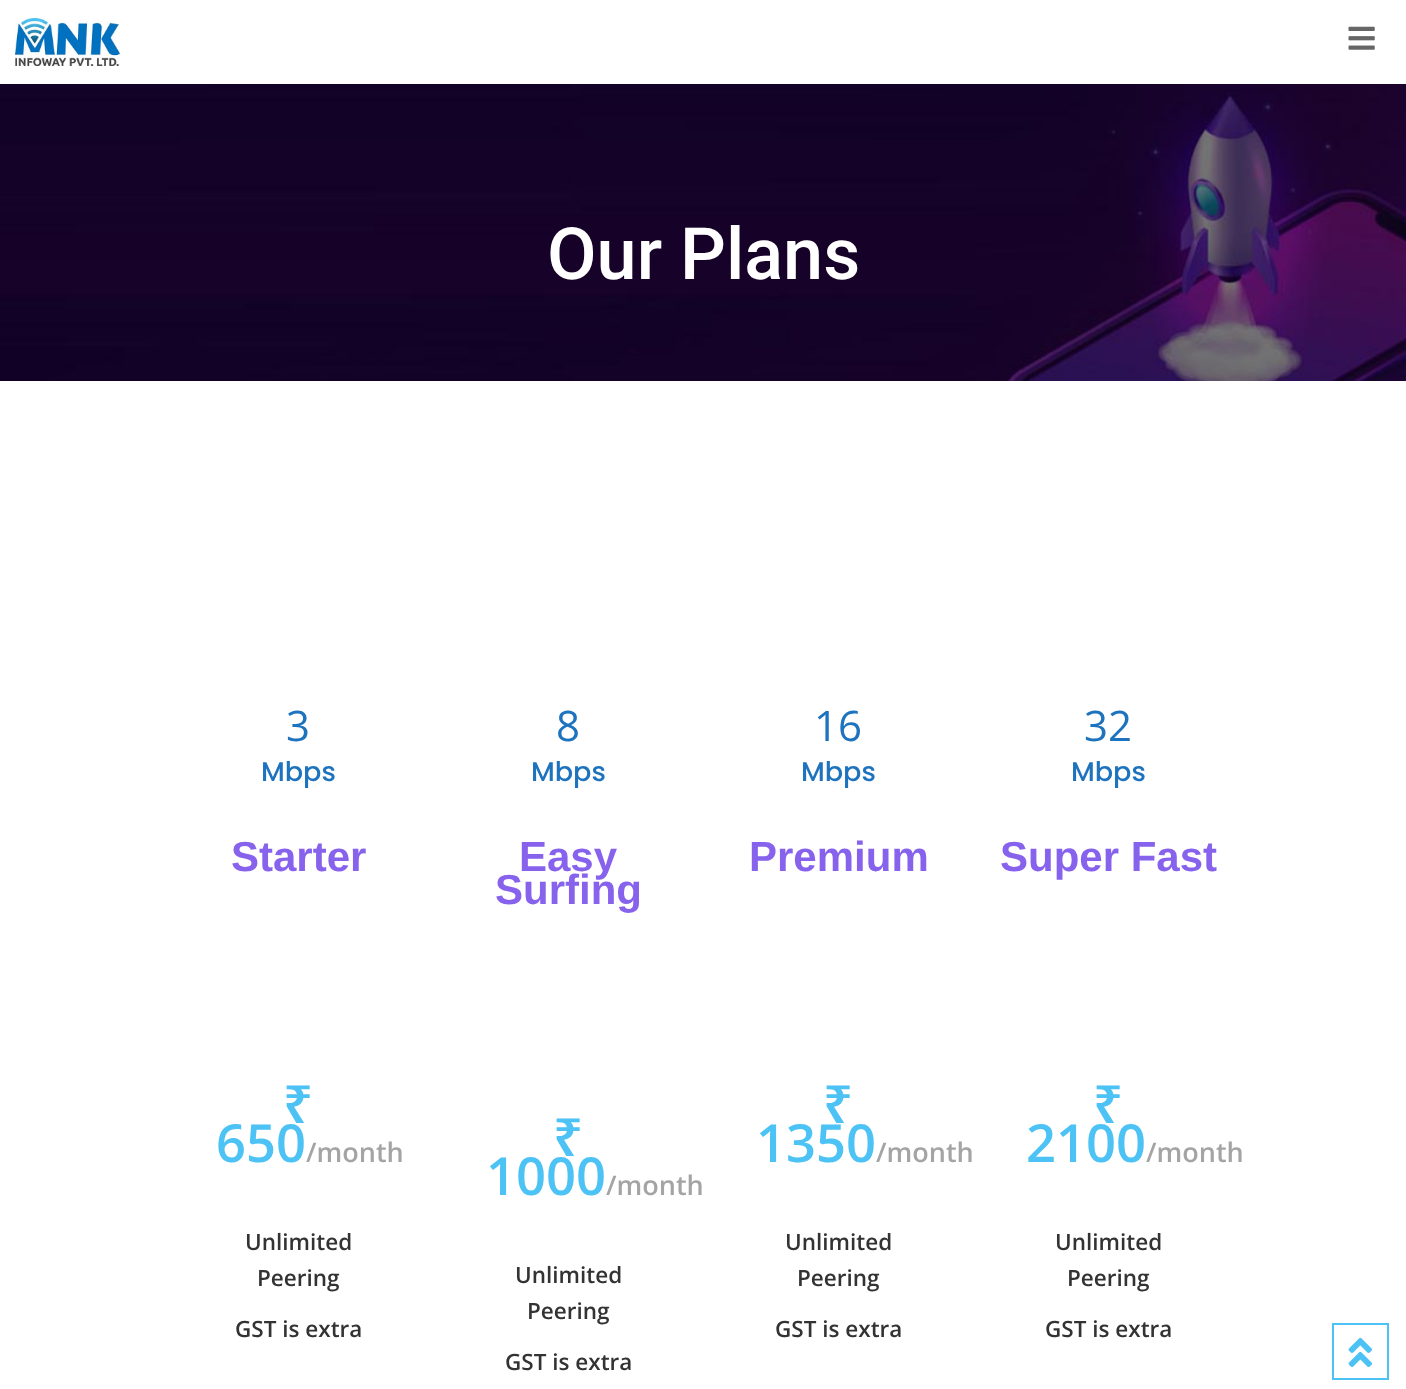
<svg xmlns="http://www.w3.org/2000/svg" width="1406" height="1389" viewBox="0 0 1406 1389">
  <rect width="100%" height="100%" fill="rgb(255,255,255)"/>
  <image x="15" y="18" width="105" height="48" href="pic1.png"/>
  <image x="1348" y="26" width="27" height="24" href="pic2.png"/>
  <image x="0" y="84" width="1406" height="297" href="pic3.png"/>
  <text x="547" y="279" font-family="Roboto" font-size="72" font-weight="500" fill="rgb(255,255,255)">Our Plans</text>
  <text x="286" y="741" font-family="Open Sans" font-size="42" fill="rgb(30,115,190)">3</text>
  <text x="261" y="781" font-family="Poppins" font-size="27" font-weight="500" fill="rgb(30,115,190)">Mbps</text>
  <text x="231" y="871" font-family="Liberation Sans" font-size="42" font-weight="bold" fill="rgb(135,99,237)">Starter</text>
  <text x="283" y="1123" font-family="Noto Sans" font-size="52.5" font-weight="600" fill="rgb(76,194,245)">₹</text>
  <text x="216" y="1162" font-family="Open Sans" font-size="52.5" font-weight="600" fill="rgb(76,194,245)">650</text>
  <text x="306" y="1162" font-family="Open Sans" font-size="27" font-weight="600" fill="rgb(164,164,164)">/month</text>
  <g font-family="Open Sans" font-size="22.5" font-weight="600" fill="rgb(51,51,51)">
    <text x="245" y="1250">Unlimited</text>
    <text x="257" y="1286">Peering</text>
    <text x="235" y="1337">GST is extra</text>
  </g>
  <text x="556" y="741" font-family="Open Sans" font-size="42" fill="rgb(30,115,190)">8</text>
  <text x="531" y="781" font-family="Poppins" font-size="27" font-weight="500" fill="rgb(30,115,190)">Mbps</text>
  <g font-family="Liberation Sans" font-size="42" font-weight="bold" fill="rgb(135,99,237)">
    <text x="519" y="871">Easy</text>
    <text x="495" y="904">Surfing</text>
  </g>
  <text x="553" y="1156" font-family="Noto Sans" font-size="52.5" font-weight="600" fill="rgb(76,194,245)">₹</text>
  <text x="486" y="1195" font-family="Open Sans" font-size="52.5" font-weight="600" fill="rgb(76,194,245)">1000</text>
  <text x="606" y="1195" font-family="Open Sans" font-size="27" font-weight="600" fill="rgb(164,164,164)">/month</text>
  <g font-family="Open Sans" font-size="22.5" font-weight="600" fill="rgb(51,51,51)">
    <text x="515" y="1283">Unlimited</text>
    <text x="527" y="1319">Peering</text>
    <text x="505" y="1370">GST is extra</text>
  </g>
  <text x="814" y="741" font-family="Open Sans" font-size="42" fill="rgb(30,115,190)">16</text>
  <text x="801" y="781" font-family="Poppins" font-size="27" font-weight="500" fill="rgb(30,115,190)">Mbps</text>
  <text x="749" y="871" font-family="Liberation Sans" font-size="42" font-weight="bold" fill="rgb(135,99,237)">Premium</text>
  <text x="823" y="1123" font-family="Noto Sans" font-size="52.5" font-weight="600" fill="rgb(76,194,245)">₹</text>
  <text x="756" y="1162" font-family="Open Sans" font-size="52.5" font-weight="600" fill="rgb(76,194,245)">1350</text>
  <text x="876" y="1162" font-family="Open Sans" font-size="27" font-weight="600" fill="rgb(164,164,164)">/month</text>
  <g font-family="Open Sans" font-size="22.5" font-weight="600" fill="rgb(51,51,51)">
    <text x="785" y="1250">Unlimited</text>
    <text x="797" y="1286">Peering</text>
    <text x="775" y="1337">GST is extra</text>
  </g>
  <text x="1084" y="741" font-family="Open Sans" font-size="42" fill="rgb(30,115,190)">32</text>
  <text x="1071" y="781" font-family="Poppins" font-size="27" font-weight="500" fill="rgb(30,115,190)">Mbps</text>
  <text x="1000" y="871" font-family="Liberation Sans" font-size="42" font-weight="bold" fill="rgb(135,99,237)">Super Fast</text>
  <text x="1093" y="1123" font-family="Noto Sans" font-size="52.5" font-weight="600" fill="rgb(76,194,245)">₹</text>
  <text x="1026" y="1162" font-family="Open Sans" font-size="52.5" font-weight="600" fill="rgb(76,194,245)">2100</text>
  <text x="1146" y="1162" font-family="Open Sans" font-size="27" font-weight="600" fill="rgb(164,164,164)">/month</text>
  <g font-family="Open Sans" font-size="22.5" font-weight="600" fill="rgb(51,51,51)">
    <text x="1055" y="1250">Unlimited</text>
    <text x="1067" y="1286">Peering</text>
    <text x="1045" y="1337">GST is extra</text>
  </g>
  <rect x="1333" y="1324" width="55" height="55" fill="none" stroke="rgb(76,194,245)" stroke-width="2"/>
  <image x="1348" y="1337" width="24" height="30" href="pic4.png"/>
</svg>
